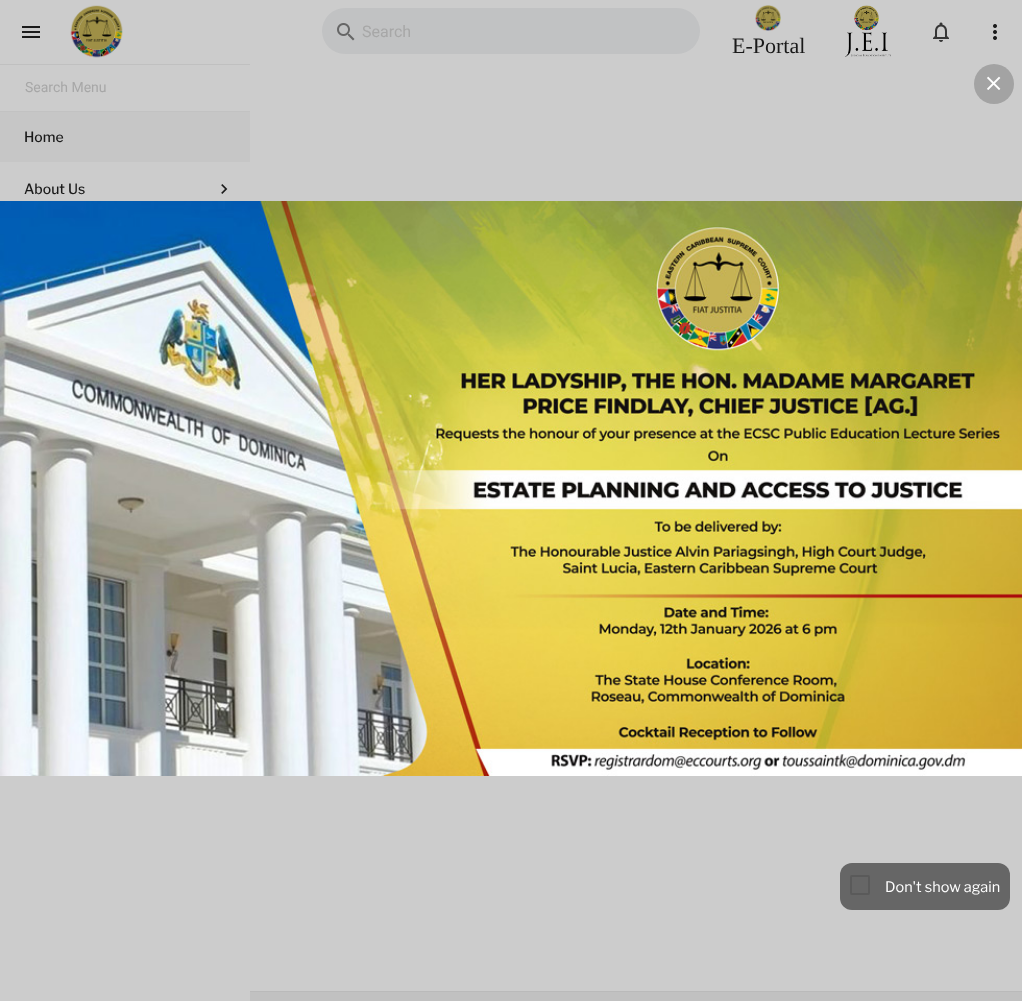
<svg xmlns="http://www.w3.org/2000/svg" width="1022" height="1001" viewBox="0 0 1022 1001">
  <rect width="100%" height="100%" fill="rgb(204,204,204)"/>
  <image x="22" y="26" width="18" height="12" href="pic1.png"/>
  <image x="70" y="5" width="53" height="53" href="pic2.png"/>
  <rect x="322" y="8" width="378" height="46" rx="23" fill="rgb(193,194,195)"/>
  <image x="337" y="23" width="18" height="18" href="pic3.png"/>
  <text x="362" y="37" font-family="Roboto" font-size="16" fill="rgb(167,167,167)">Search</text>
  <image x="845" y="5" width="46" height="52" href="pic4.png"/>
  <image x="933" y="22" width="16" height="20" href="pic5.png"/>
  <image x="993" y="24" width="4" height="16" href="pic6.png"/>
  <image x="755" y="5" width="26" height="26" href="pic7.png"/>
  <text x="732" y="53" font-family="Liberation Serif" font-size="22" fill="rgb(26,26,26)">E-Portal</text>
  <rect x="0" y="64" width="250" height="1" fill="rgb(192,192,192)"/>
  <rect x="0" y="111" width="250" height="1" fill="rgb(194,194,194)"/>
  <text x="25" y="92" font-family="Roboto" font-size="14" fill="rgb(167,167,167)">Search Menu</text>
  <rect x="0" y="112" width="250" height="50" fill="rgb(198,198,198)"/>
  <g font-family="Libre Franklin" font-size="14" font-weight="500" fill="rgb(26,26,26)">
    <text x="24" y="142">Home</text>
    <text x="24" y="194">About Us</text>
  </g>
  <image x="221" y="184" width="7" height="10" href="pic8.png"/>
  <circle cx="994" cy="84" r="20" fill="rgba(0,0,0,0.2)"/>
  <image x="987" y="76" width="14" height="14" href="pic9.png"/>
  <image x="0" y="201" width="1022" height="575" href="pic10.png"/>
  <rect x="840" y="863" width="170" height="47" rx="12" fill="rgb(102,102,102)"/>
  <rect x="851" y="876" width="18" height="18" rx="1" fill="none" stroke="rgb(90,90,90)" stroke-width="2"/>
  <text x="885" y="892" font-family="Libre Franklin" font-size="14.5" fill="rgb(255,255,255)">Don't show again</text>
  <rect x="250" y="992" width="772" height="9" fill="rgb(193,193,193)"/>
  <rect x="250" y="991" width="772" height="1" fill="rgb(186,186,186)"/>
</svg>
